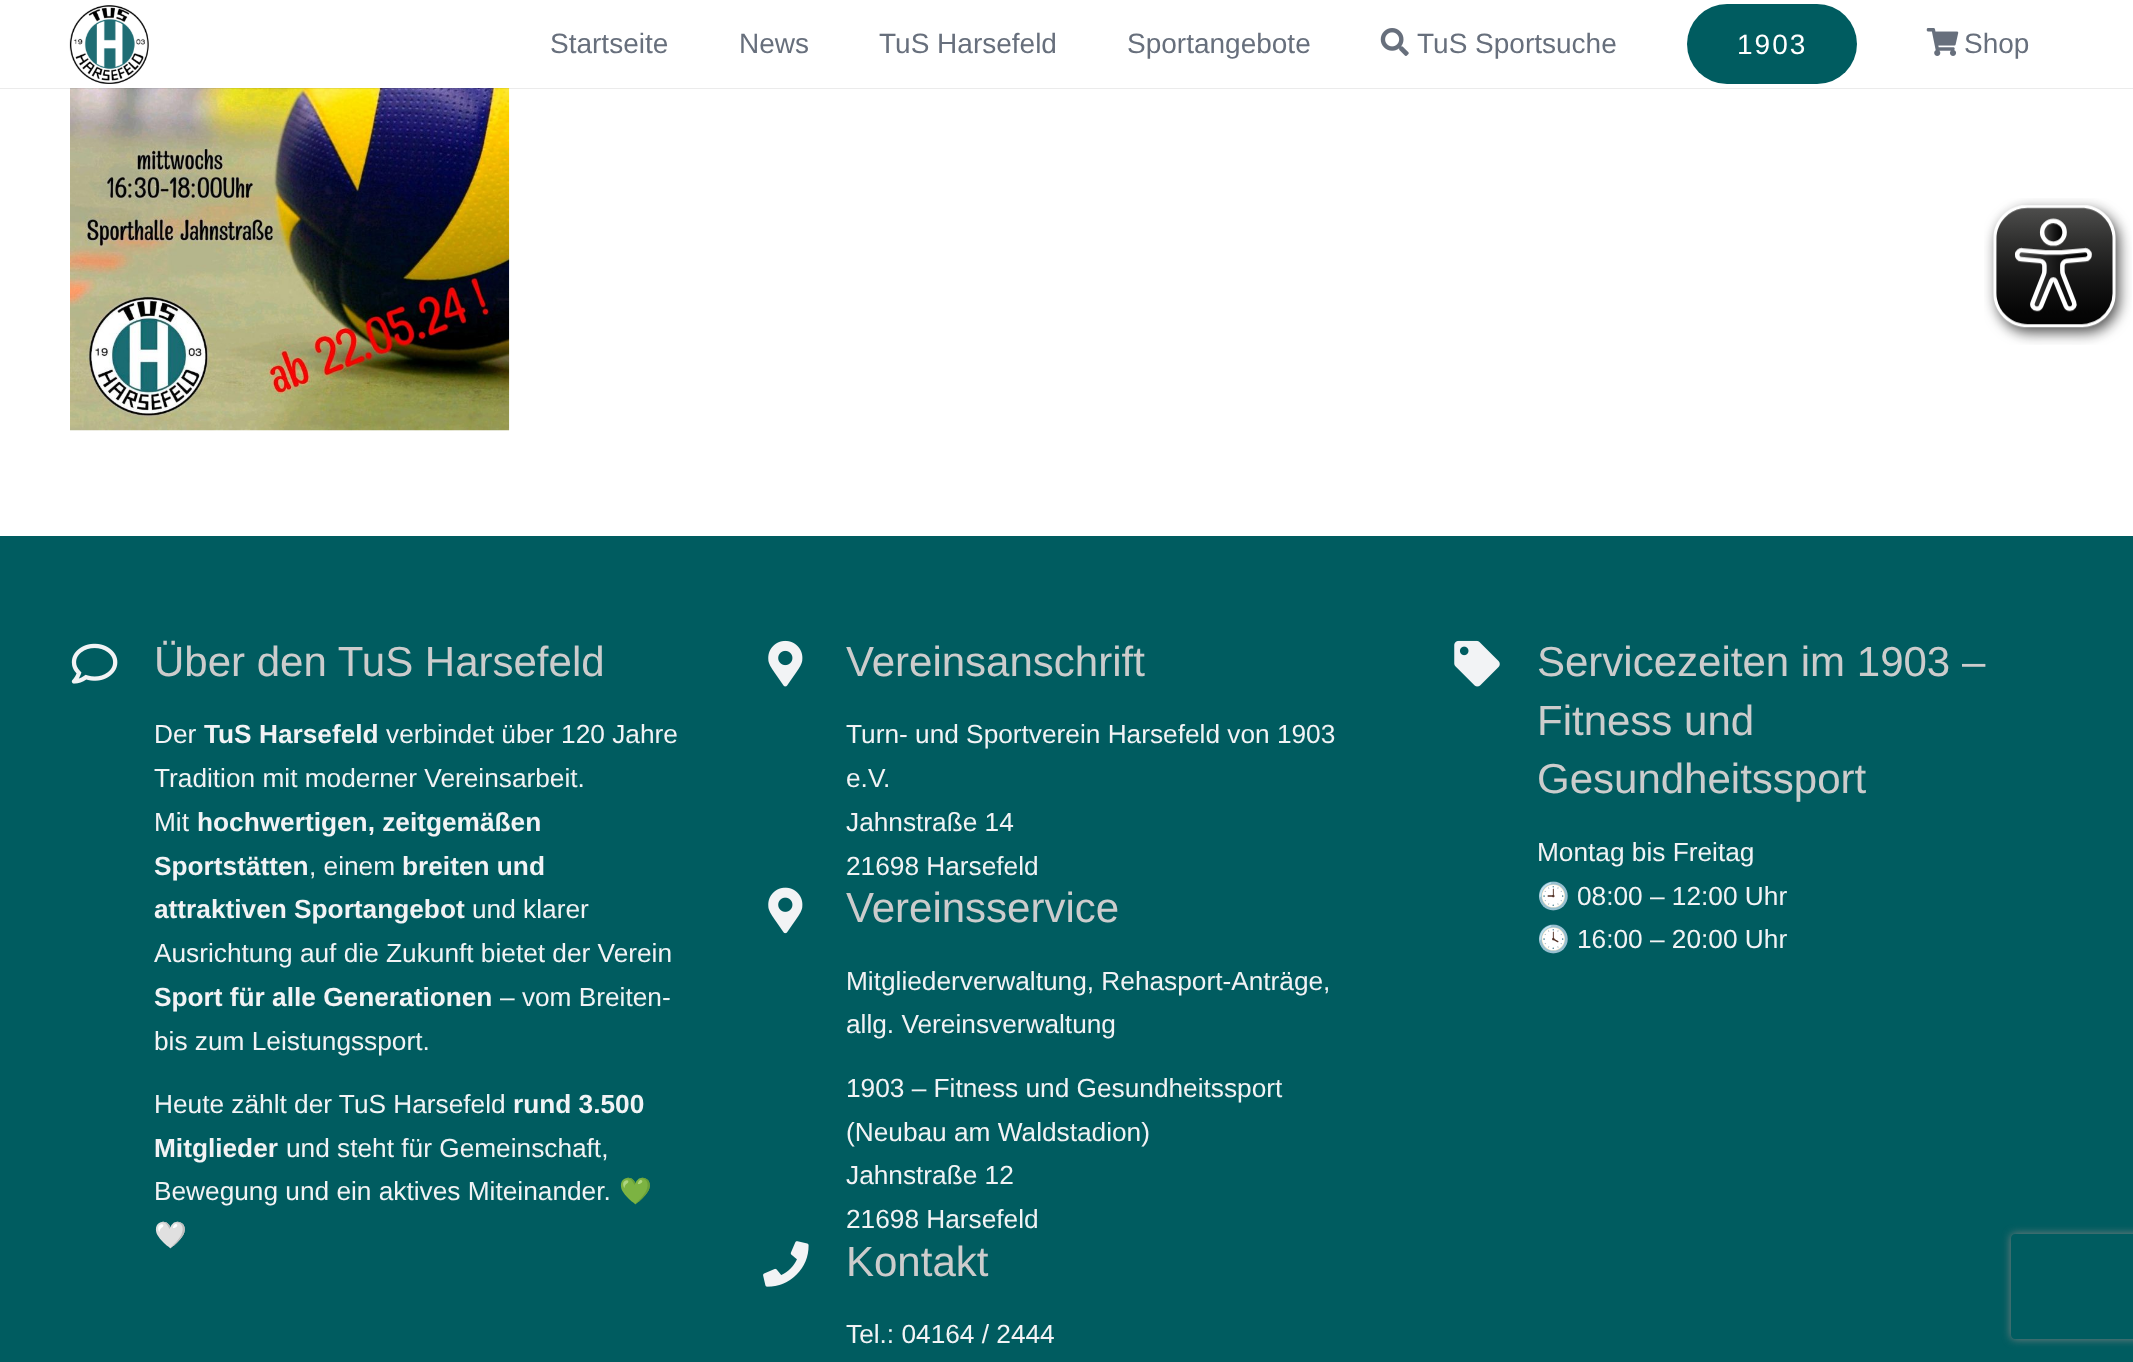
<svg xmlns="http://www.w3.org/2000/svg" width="2133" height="1362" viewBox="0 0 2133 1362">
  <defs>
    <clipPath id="clip1"><path d="M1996 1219H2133V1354H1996ZM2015 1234H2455C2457 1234 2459 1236 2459 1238V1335C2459 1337 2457 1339 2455 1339H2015C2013 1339 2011 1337 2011 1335V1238C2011 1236 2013 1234 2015 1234Z" clip-rule="evenodd"/></clipPath>
  </defs>
  <rect width="100%" height="100%" fill="rgb(255,255,255)"/>
  <image x="70" y="88" width="440" height="343" href="pic4.png"/>
  <rect x="0" y="88" width="2133" height="1" fill="rgba(0,0,0,0.08)"/>
  <image x="69" y="5" width="80" height="79" href="pic1.png"/>
  <g font-family="Liberation Sans" font-size="28" fill="rgb(103,111,124)">
    <text x="550" y="53">Startseite</text>
    <text x="739" y="53">News</text>
    <text x="879" y="53">TuS Harsefeld</text>
    <text x="1127" y="53">Sportangebote</text>
  </g>
  <image x="1380" y="28" width="29" height="28" href="pic2.png"/>
  <text x="1417" y="53" font-family="Liberation Sans" font-size="28" fill="rgb(103,111,124)">TuS Sportsuche</text>
  <rect x="1687" y="4" width="170" height="80" rx="40" fill="rgb(0,92,96)"/>
  <text x="1737" y="54" font-family="Liberation Sans" font-size="28" letter-spacing="2" fill="rgb(255,255,255)">1903</text>
  <image x="1926" y="28" width="33" height="28" href="pic3.png"/>
  <text x="1964" y="53" font-family="Liberation Sans" font-size="28" fill="rgb(103,111,124)">Shop</text>
  <image x="1984" y="198" width="148" height="147" href="pic5.png"/>
  <rect x="0" y="536" width="2133" height="826" fill="rgb(0,92,96)"/>
  <image x="71" y="643" width="47" height="41" href="pic6.png"/>
  <text x="154" y="676" font-family="Liberation Sans" font-size="42" fill="rgb(204,204,204)">Über den TuS Harsefeld</text>
  <text x="154" y="743" font-family="Liberation Sans" font-size="26.25" fill="rgb(242,243,245)">Der</text>
  <text x="204" y="743" font-family="Liberation Sans" font-size="26.25" font-weight="bold" fill="rgb(242,243,245)">TuS Harsefeld</text>
  <g font-family="Liberation Sans" font-size="26.25" fill="rgb(242,243,245)">
    <text x="386" y="743">verbindet über 120 Jahre</text>
    <text>
      <tspan x="154" y="787">Tradition mit moderner Vereinsarbeit.</tspan>
      <tspan x="154" y="831">Mit</tspan>
    </text>
  </g>
  <g font-family="Liberation Sans" font-size="26.25" font-weight="bold" fill="rgb(242,243,245)">
    <text x="197" y="831">hochwertigen, zeitgemäßen</text>
    <text x="154" y="875">Sportstätten</text>
  </g>
  <text x="309" y="875" font-family="Liberation Sans" font-size="26.25" fill="rgb(242,243,245)">, einem</text>
  <g font-family="Liberation Sans" font-size="26.25" font-weight="bold" fill="rgb(242,243,245)">
    <text x="402" y="875">breiten und</text>
    <text x="154" y="918">attraktiven Sportangebot</text>
  </g>
  <g font-family="Liberation Sans" font-size="26.25" fill="rgb(242,243,245)">
    <text x="472" y="918">und klarer</text>
    <text x="154" y="962">Ausrichtung auf die Zukunft bietet der Verein</text>
  </g>
  <text x="154" y="1006" font-family="Liberation Sans" font-size="26.25" font-weight="bold" fill="rgb(242,243,245)">Sport für alle Generationen</text>
  <g font-family="Liberation Sans" font-size="26.25" fill="rgb(242,243,245)">
    <text x="500" y="1006">– vom Breiten-</text>
    <text x="154" y="1050">bis zum Leistungssport.</text>
    <text x="154" y="1113">Heute zählt der TuS Harsefeld</text>
  </g>
  <g font-family="Liberation Sans" font-size="26.25" font-weight="bold" fill="rgb(242,243,245)">
    <text x="513" y="1113">rund 3.500</text>
    <text x="154" y="1157">Mitglieder</text>
  </g>
  <g font-family="Liberation Sans" font-size="26.25" fill="rgb(242,243,245)">
    <text x="286" y="1157">und steht für Gemeinschaft,</text>
    <text x="154" y="1200">Bewegung und ein aktives Miteinander.</text>
  </g>
  <g font-family="Noto Color Emoji" font-size="26.25" fill="rgb(242,243,245)">
    <text x="619" y="1200">💚</text>
    <text x="154" y="1244">🤍</text>
  </g>
  <image x="768" y="640" width="35" height="47" href="pic7.png"/>
  <text x="846" y="676" font-family="Liberation Sans" font-size="42" fill="rgb(204,204,204)">Vereinsanschrift</text>
  <g font-family="Liberation Sans" font-size="26.25" fill="rgb(242,243,245)">
    <text>
      <tspan x="846" y="743">Turn- und Sportverein Harsefeld von 1903</tspan>
      <tspan x="846" y="787">e.V.</tspan>
      <tspan x="846" y="831">Jahnstraße 14</tspan>
      <tspan x="846" y="875">21698 Harsefeld</tspan>
    </text>
  </g>
  <image x="768" y="887" width="35" height="47" href="pic8.png"/>
  <text x="846" y="922" font-family="Liberation Sans" font-size="42" fill="rgb(204,204,204)">Vereinsservice</text>
  <g font-family="Liberation Sans" font-size="26.25" fill="rgb(242,243,245)">
    <text>
      <tspan x="846" y="990">Mitgliederverwaltung, Rehasport-Anträge,</tspan>
      <tspan x="846" y="1033">allg. Vereinsverwaltung</tspan>
    </text>
    <text>
      <tspan x="846" y="1097">1903 – Fitness und Gesundheitssport</tspan>
      <tspan x="846" y="1141">(Neubau am Waldstadion)</tspan>
      <tspan x="846" y="1184">Jahnstraße 12</tspan>
      <tspan x="846" y="1228">21698 Harsefeld</tspan>
    </text>
  </g>
  <image x="763" y="1241" width="46" height="46" href="pic9.png"/>
  <text x="846" y="1276" font-family="Liberation Sans" font-size="42" fill="rgb(204,204,204)">Kontakt</text>
  <text x="846" y="1343" font-family="Liberation Sans" font-size="26.25" fill="rgb(242,243,245)">Tel.: 04164 / 2444</text>
  <image x="1454" y="640" width="46" height="47" href="pic10.png"/>
  <g font-family="Liberation Sans" font-size="42" fill="rgb(204,204,204)">
    <text>
      <tspan x="1537" y="676">Servicezeiten im 1903 –</tspan>
      <tspan x="1537" y="735">Fitness und</tspan>
      <tspan x="1537" y="793">Gesundheitssport</tspan>
    </text>
  </g>
  <text x="1537" y="861" font-family="Liberation Sans" font-size="26.25" fill="rgb(242,243,245)">Montag bis Freitag</text>
  <text x="1537" y="905" font-family="Noto Color Emoji" font-size="26.25" fill="rgb(242,243,245)">🕘</text>
  <text x="1577" y="905" font-family="Liberation Sans" font-size="26.25" fill="rgb(242,243,245)">08:00 – 12:00 Uhr</text>
  <text x="1537" y="948" font-family="Noto Color Emoji" font-size="26.25" fill="rgb(242,243,245)">🕓</text>
  <text x="1577" y="948" font-family="Liberation Sans" font-size="26.25" fill="rgb(242,243,245)">16:00 – 20:00 Uhr</text>
  <g clip-path="url(#clip1)">
    <rect x="2011" y="1234" width="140" height="105" rx="4" fill="rgb(128,128,128)" filter="blur(4.5px)"/>
  </g>
</svg>
